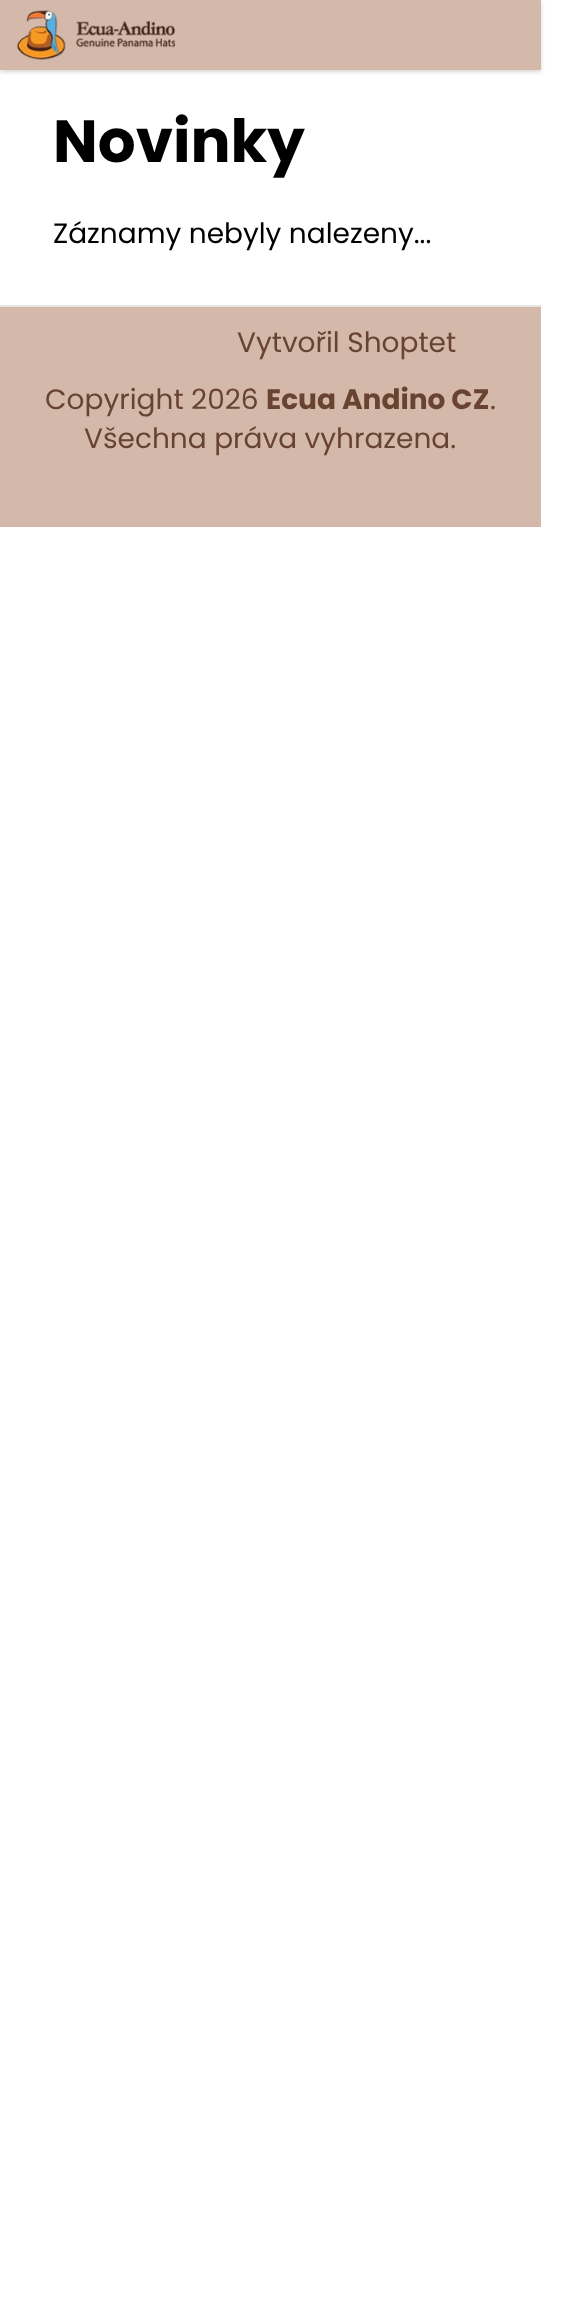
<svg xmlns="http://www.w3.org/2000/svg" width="566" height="2311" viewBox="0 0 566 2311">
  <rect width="100%" height="100%" fill="rgb(255,255,255)"/>
  <rect x="0" y="2" width="541" height="70" fill="rgba(0,0,0,0.16)" filter="blur(2px)"/>
  <rect x="0" y="0" width="541" height="70" fill="rgb(212,184,170)"/>
  <image x="17" y="10" width="158" height="50" href="pic1.png"/>
  <text x="53" y="162" font-family="Poppins" font-size="59.5" font-weight="bold" fill="rgb(0,0,0)">Novinky</text>
  <text x="53" y="243" font-family="Poppins" font-size="28" fill="rgb(0,0,0)">Záznamy nebyly nalezeny...</text>
  <rect x="0" y="307" width="541" height="220" fill="rgb(212,184,170)"/>
  <rect x="0" y="305" width="541" height="2" fill="rgb(230,230,230)"/>
  <g font-family="Poppins" font-size="28" fill="rgb(104,67,49)">
    <text x="237" y="352">Vytvořil Shoptet</text>
    <text x="45" y="409">Copyright 2026</text>
  </g>
  <text x="266" y="409" font-family="Poppins" font-size="28" font-weight="bold" fill="rgb(104,67,49)">Ecua Andino CZ</text>
  <g font-family="Poppins" font-size="28" fill="rgb(104,67,49)">
    <text x="490" y="409">.</text>
    <text x="84" y="448">Všechna práva vyhrazena.</text>
  </g>
</svg>
